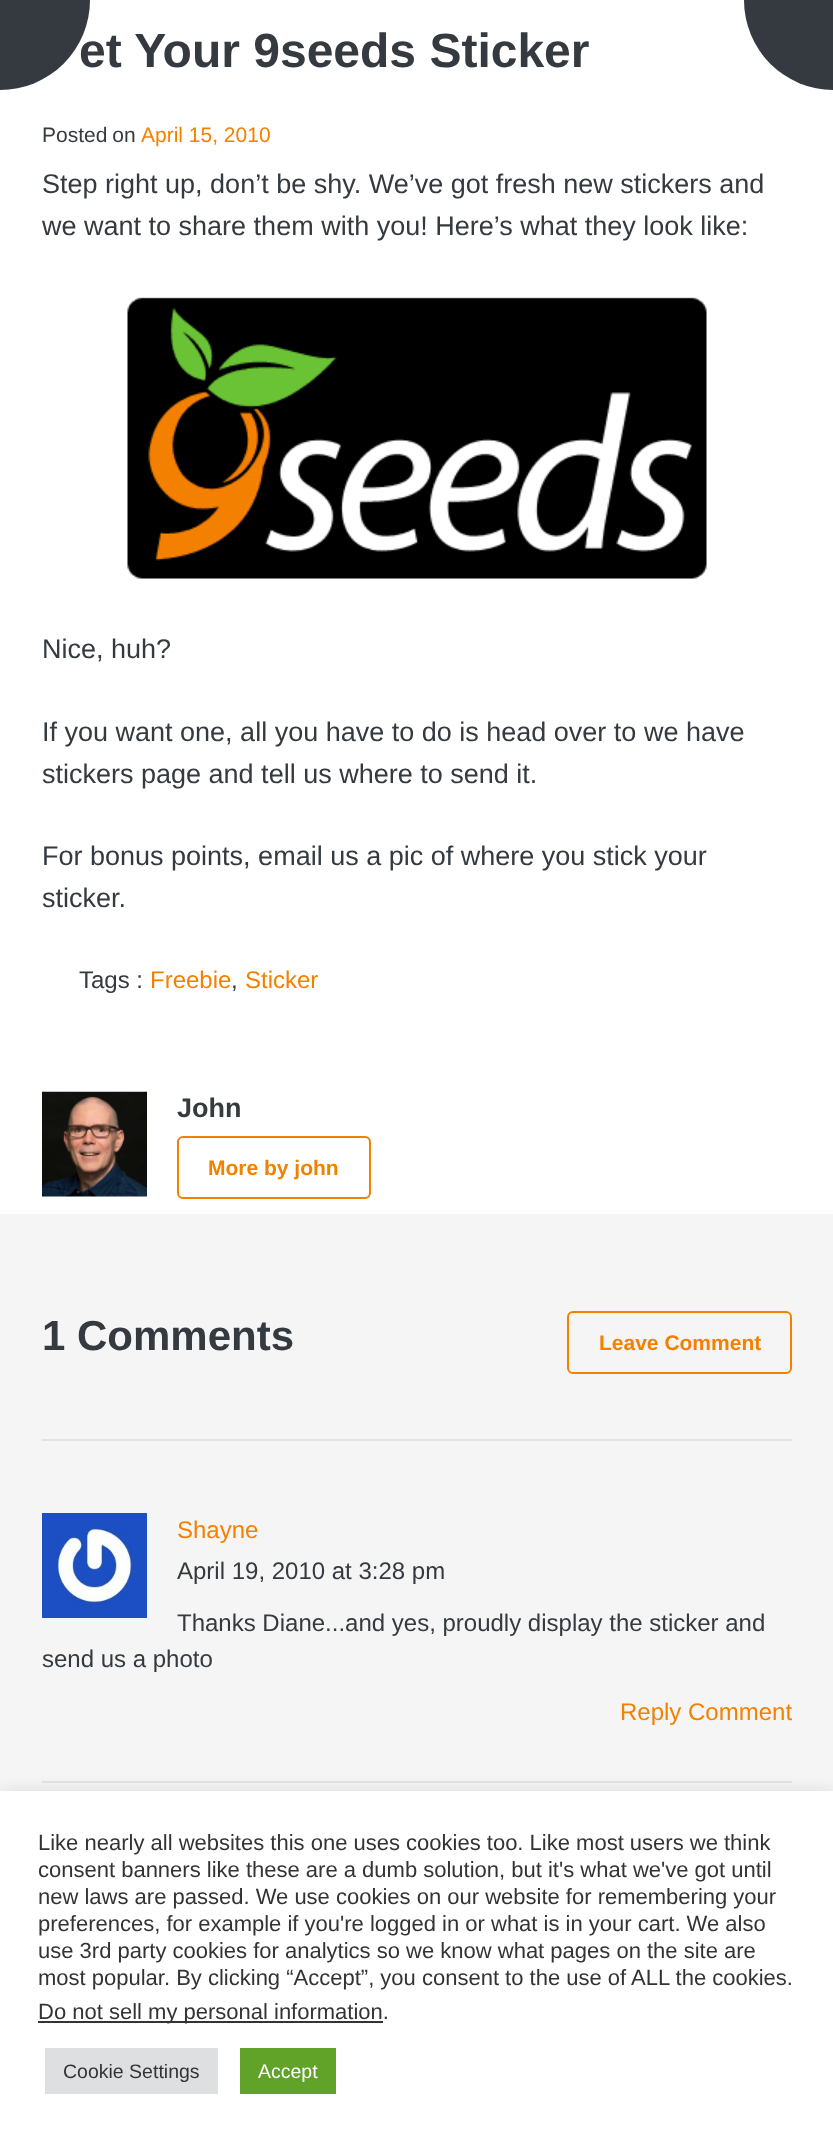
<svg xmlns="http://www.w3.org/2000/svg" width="833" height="2138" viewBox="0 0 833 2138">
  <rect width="100%" height="100%" fill="rgb(255,255,255)"/>
  <circle cx="0" cy="0" r="90" fill="rgb(52,58,63)"/>
  <rect x="744" y="-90" width="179" height="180" rx="90" fill="rgb(52,58,63)"/>
  <text x="79" y="67" font-family="Liberation Sans" font-size="48" font-weight="bold" fill="rgb(52,58,63)">et Your 9seeds Sticker</text>
  <text x="42" y="142" word-spacing="-1" font-family="Liberation Sans" font-size="21" fill="rgb(52,58,63)">Posted on</text>
  <text x="141" y="142" font-family="Liberation Sans" font-size="21" fill="rgb(244,128,0)">April 15, 2010</text>
  <g font-family="Liberation Sans" font-size="27" fill="rgb(52,58,63)">
    <text>
      <tspan x="42" y="193">Step right up, don’t be shy. We’ve got fresh new stickers and</tspan>
      <tspan x="42" y="235">we want to share them with you! Here’s what they look like:</tspan>
    </text>
  </g>
  <image x="127" y="297" width="580" height="282" href="pic1.png"/>
  <g font-family="Liberation Sans" font-size="27" fill="rgb(52,58,63)">
    <text x="42" y="658">Nice, huh?</text>
    <text>
      <tspan x="42" y="741">If you want one, all you have to do is head over to we have</tspan>
      <tspan x="42" y="783">stickers page and tell us where to send it.</tspan>
    </text>
    <text>
      <tspan x="42" y="865">For bonus points, email us a pic of where you stick your</tspan>
      <tspan x="42" y="907">sticker.</tspan>
    </text>
  </g>
  <text x="79" y="988" font-family="Liberation Sans" font-size="24" fill="rgb(52,58,63)">Tags :</text>
  <text x="150" y="988" font-family="Liberation Sans" font-size="24" fill="rgb(244,128,0)">Freebie</text>
  <text x="231" y="988" font-family="Liberation Sans" font-size="24" fill="rgb(52,58,63)">,</text>
  <text x="245" y="988" font-family="Liberation Sans" font-size="24" fill="rgb(244,128,0)">Sticker</text>
  <image x="42" y="1091" width="105" height="106" href="pic2.png"/>
  <text x="177" y="1117" font-family="Liberation Sans" font-size="27" font-weight="bold" fill="rgb(52,58,63)">John</text>
  <rect x="178" y="1137" width="192" height="61" rx="5" fill="none" stroke="rgb(244,128,0)" stroke-width="2"/>
  <text x="208" y="1175" font-family="Liberation Sans" font-size="21" font-weight="bold" fill="rgb(244,128,0)">More by john</text>
  <rect x="0" y="1214" width="833" height="577" fill="rgb(245,245,245)"/>
  <text x="42" y="1350" font-family="Liberation Sans" font-size="42" font-weight="bold" fill="rgb(52,58,63)">1 Comments</text>
  <rect x="568" y="1312" width="223" height="61" rx="5" fill="none" stroke="rgb(244,128,0)" stroke-width="2"/>
  <text x="599" y="1350" font-family="Liberation Sans" font-size="21" font-weight="bold" fill="rgb(244,128,0)">Leave Comment</text>
  <rect x="42" y="1439" width="750" height="2" fill="rgb(227,227,227)"/>
  <rect x="42" y="1781" width="750" height="2" fill="rgb(227,227,227)"/>
  <image x="42" y="1513" width="105" height="105" href="pic3.png"/>
  <text x="177" y="1538" font-family="Liberation Sans" font-size="24" fill="rgb(244,128,0)">Shayne</text>
  <g font-family="Liberation Sans" font-size="24" fill="rgb(52,58,63)">
    <text x="177" y="1579">April 19, 2010 at 3:28 pm</text>
    <text x="177" y="1631">Thanks Diane...and yes, proudly display the sticker and</text>
    <text x="42" y="1667">send us a photo</text>
  </g>
  <text x="620" y="1720" font-family="Liberation Sans" font-size="24" fill="rgb(244,128,0)">Reply Comment</text>
  <rect x="0" y="1790" width="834" height="348" fill="rgba(172,171,171,0.3)" filter="blur(7.5px)"/>
  <rect x="0" y="1791" width="833" height="347" fill="rgb(255,255,255)"/>
  <g font-family="Liberation Sans" font-size="22" fill="rgb(51,51,51)">
    <text>
      <tspan x="38" y="1850">Like nearly all websites this one uses cookies too. Like most users we think</tspan>
      <tspan x="38" y="1877">consent banners like these are a dumb solution, but it's what we've got until</tspan>
      <tspan x="38" y="1904">new laws are passed. We use cookies on our website for remembering your</tspan>
      <tspan x="38" y="1931">preferences, for example if you're logged in or what is in your cart. We also</tspan>
      <tspan x="38" y="1958">use 3rd party cookies for analytics so we know what pages on the site are</tspan>
      <tspan x="38" y="1985">most popular. By clicking “Accept”, you consent to the use of ALL the cookies.</tspan>
    </text>
  </g>
  <rect x="38" y="2021" width="345" height="2" fill="rgb(51,51,51)"/>
  <text x="38" y="2019" font-family="Liberation Sans" font-size="22" fill="rgb(51,51,51)">Do not sell my personal information.</text>
  <rect x="45" y="2048" width="173" height="46" fill="rgb(222,223,224)"/>
  <text x="63" y="2078" font-family="Liberation Sans" font-size="19.5" fill="rgb(51,51,51)">Cookie Settings</text>
  <rect x="240" y="2048" width="96" height="46" fill="rgb(97,162,41)"/>
  <text x="258" y="2078" font-family="Liberation Sans" font-size="19.5" fill="rgb(255,255,255)">Accept</text>
</svg>
